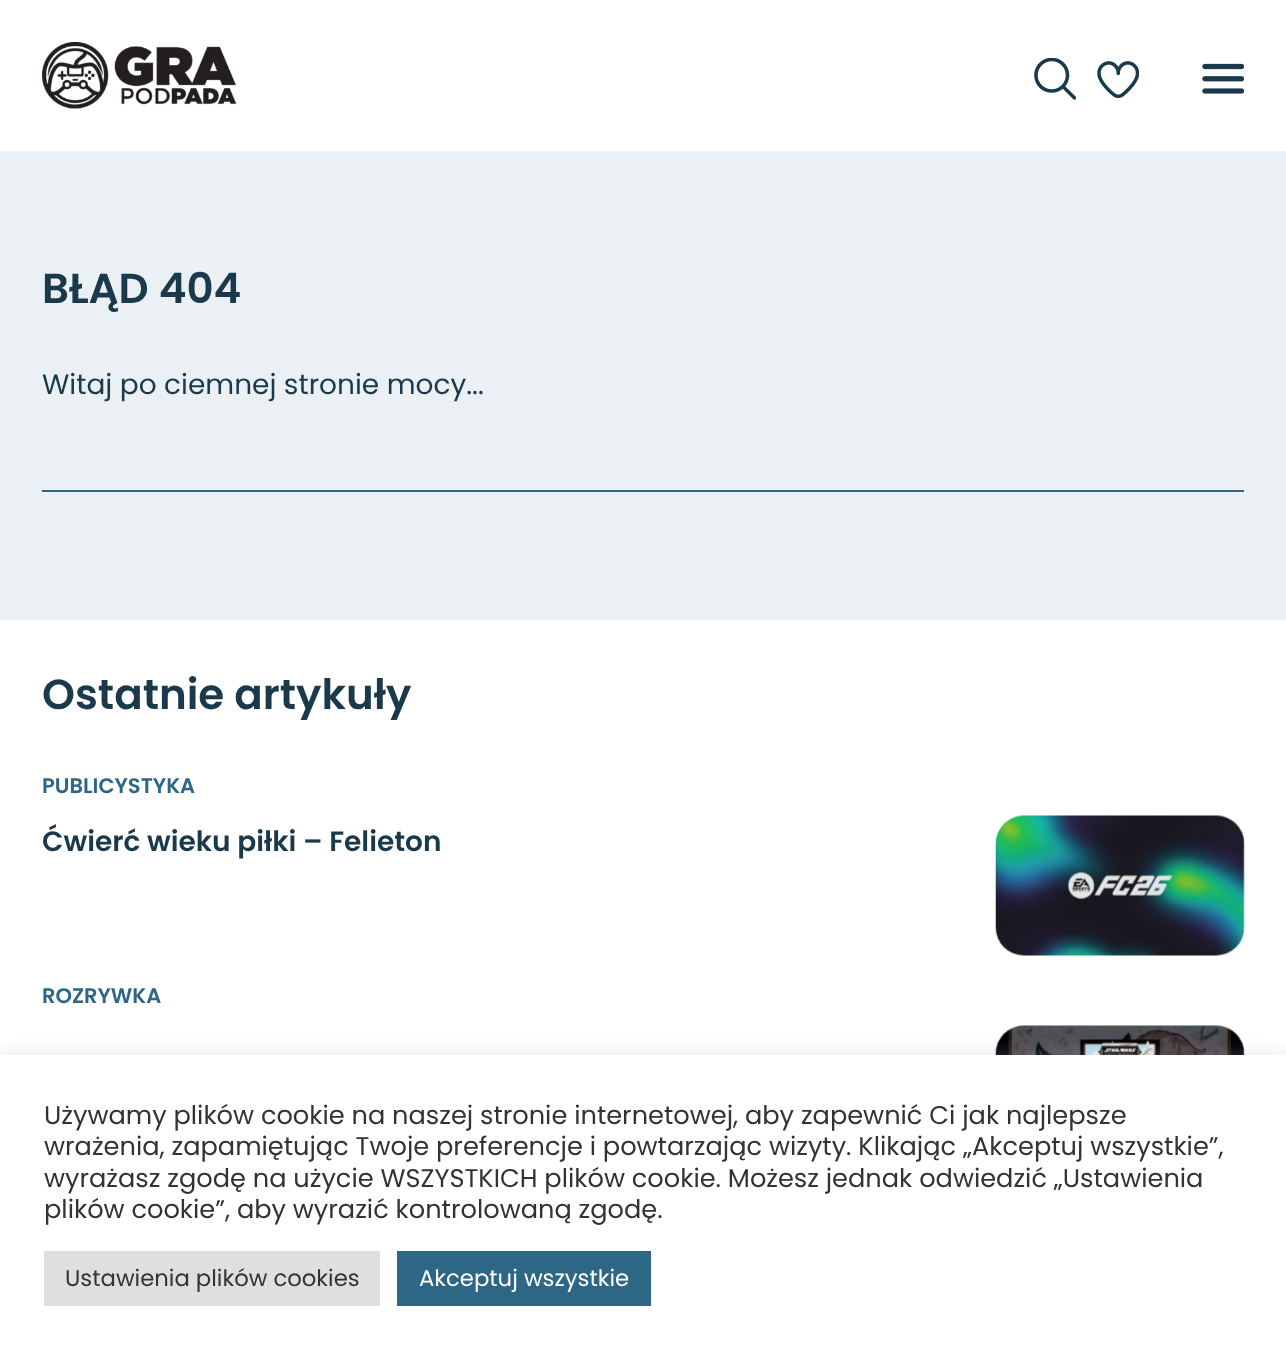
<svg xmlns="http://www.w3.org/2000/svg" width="1286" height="1357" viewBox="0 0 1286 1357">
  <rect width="100%" height="100%" fill="rgb(255,255,255)"/>
  <image x="42" y="42" width="195" height="67" href="pic1.png"/>
  <image x="1034" y="58" width="42" height="42" href="pic2.png"/>
  <image x="1097" y="61" width="42" height="37" href="pic3.png"/>
  <image x="1202" y="63" width="42" height="31" href="pic4.png"/>
  <rect x="0" y="151" width="1286" height="469" fill="rgb(234,240,243)"/>
  <text x="42" y="303" font-family="Poppins" font-size="42" font-weight="600" fill="rgb(26,58,76)">BŁĄD 404</text>
  <text x="42" y="394" font-family="Poppins" font-size="28" fill="rgb(26,58,76)">Witaj po ciemnej stronie mocy...</text>
  <rect x="42" y="490" width="1202" height="2" fill="rgb(46,102,133)"/>
  <text x="42" y="709" font-family="Poppins" font-size="42" font-weight="600" fill="rgb(26,58,76)">Ostatnie artykuły</text>
  <text x="42" y="793" font-family="Poppins" font-size="21" font-weight="600" fill="rgb(46,102,133)">PUBLICYSTYKA</text>
  <text x="42" y="851" font-family="Poppins" font-size="28" font-weight="600" fill="rgb(26,58,76)">Ćwierć wieku piłki – Felieton</text>
  <image x="995" y="815" width="250" height="141" href="pic5.png"/>
  <text x="42" y="1003" font-family="Poppins" font-size="21" font-weight="600" fill="rgb(46,102,133)">ROZRYWKA</text>
  <image x="995" y="1025" width="250" height="30" href="pic6.png"/>
  <rect x="0" y="1054" width="1286" height="302" fill="rgba(172,171,171,0.3)" filter="blur(9px)"/>
  <rect x="0" y="1055" width="1286" height="302" fill="rgb(255,255,255)"/>
  <g font-family="Poppins" font-size="25.65" fill="rgb(51,51,51)">
    <text>
      <tspan x="44" y="1124">Używamy plików cookie na naszej stronie internetowej, aby zapewnić Ci jak najlepsze</tspan>
      <tspan x="44" y="1155">wrażenia, zapamiętując Twoje preferencje i powtarzając wizyty. Klikając „Akceptuj wszystkie”,</tspan>
      <tspan x="44" y="1187">wyrażasz zgodę na użycie WSZYSTKICH plików cookie. Możesz jednak odwiedzić „Ustawienia</tspan>
      <tspan x="44" y="1218">plików cookie”, aby wyrazić kontrolowaną zgodę.</tspan>
    </text>
  </g>
  <rect x="44" y="1251" width="336" height="55" fill="rgb(222,223,224)"/>
  <text x="65" y="1286" font-family="Poppins" font-size="22.75" fill="rgb(51,51,51)">Ustawienia plików cookies</text>
  <rect x="397" y="1251" width="254" height="55" fill="rgb(46,102,133)"/>
  <text x="419" y="1286" font-family="Poppins" font-size="22.75" fill="rgb(255,255,255)">Akceptuj wszystkie</text>
</svg>
